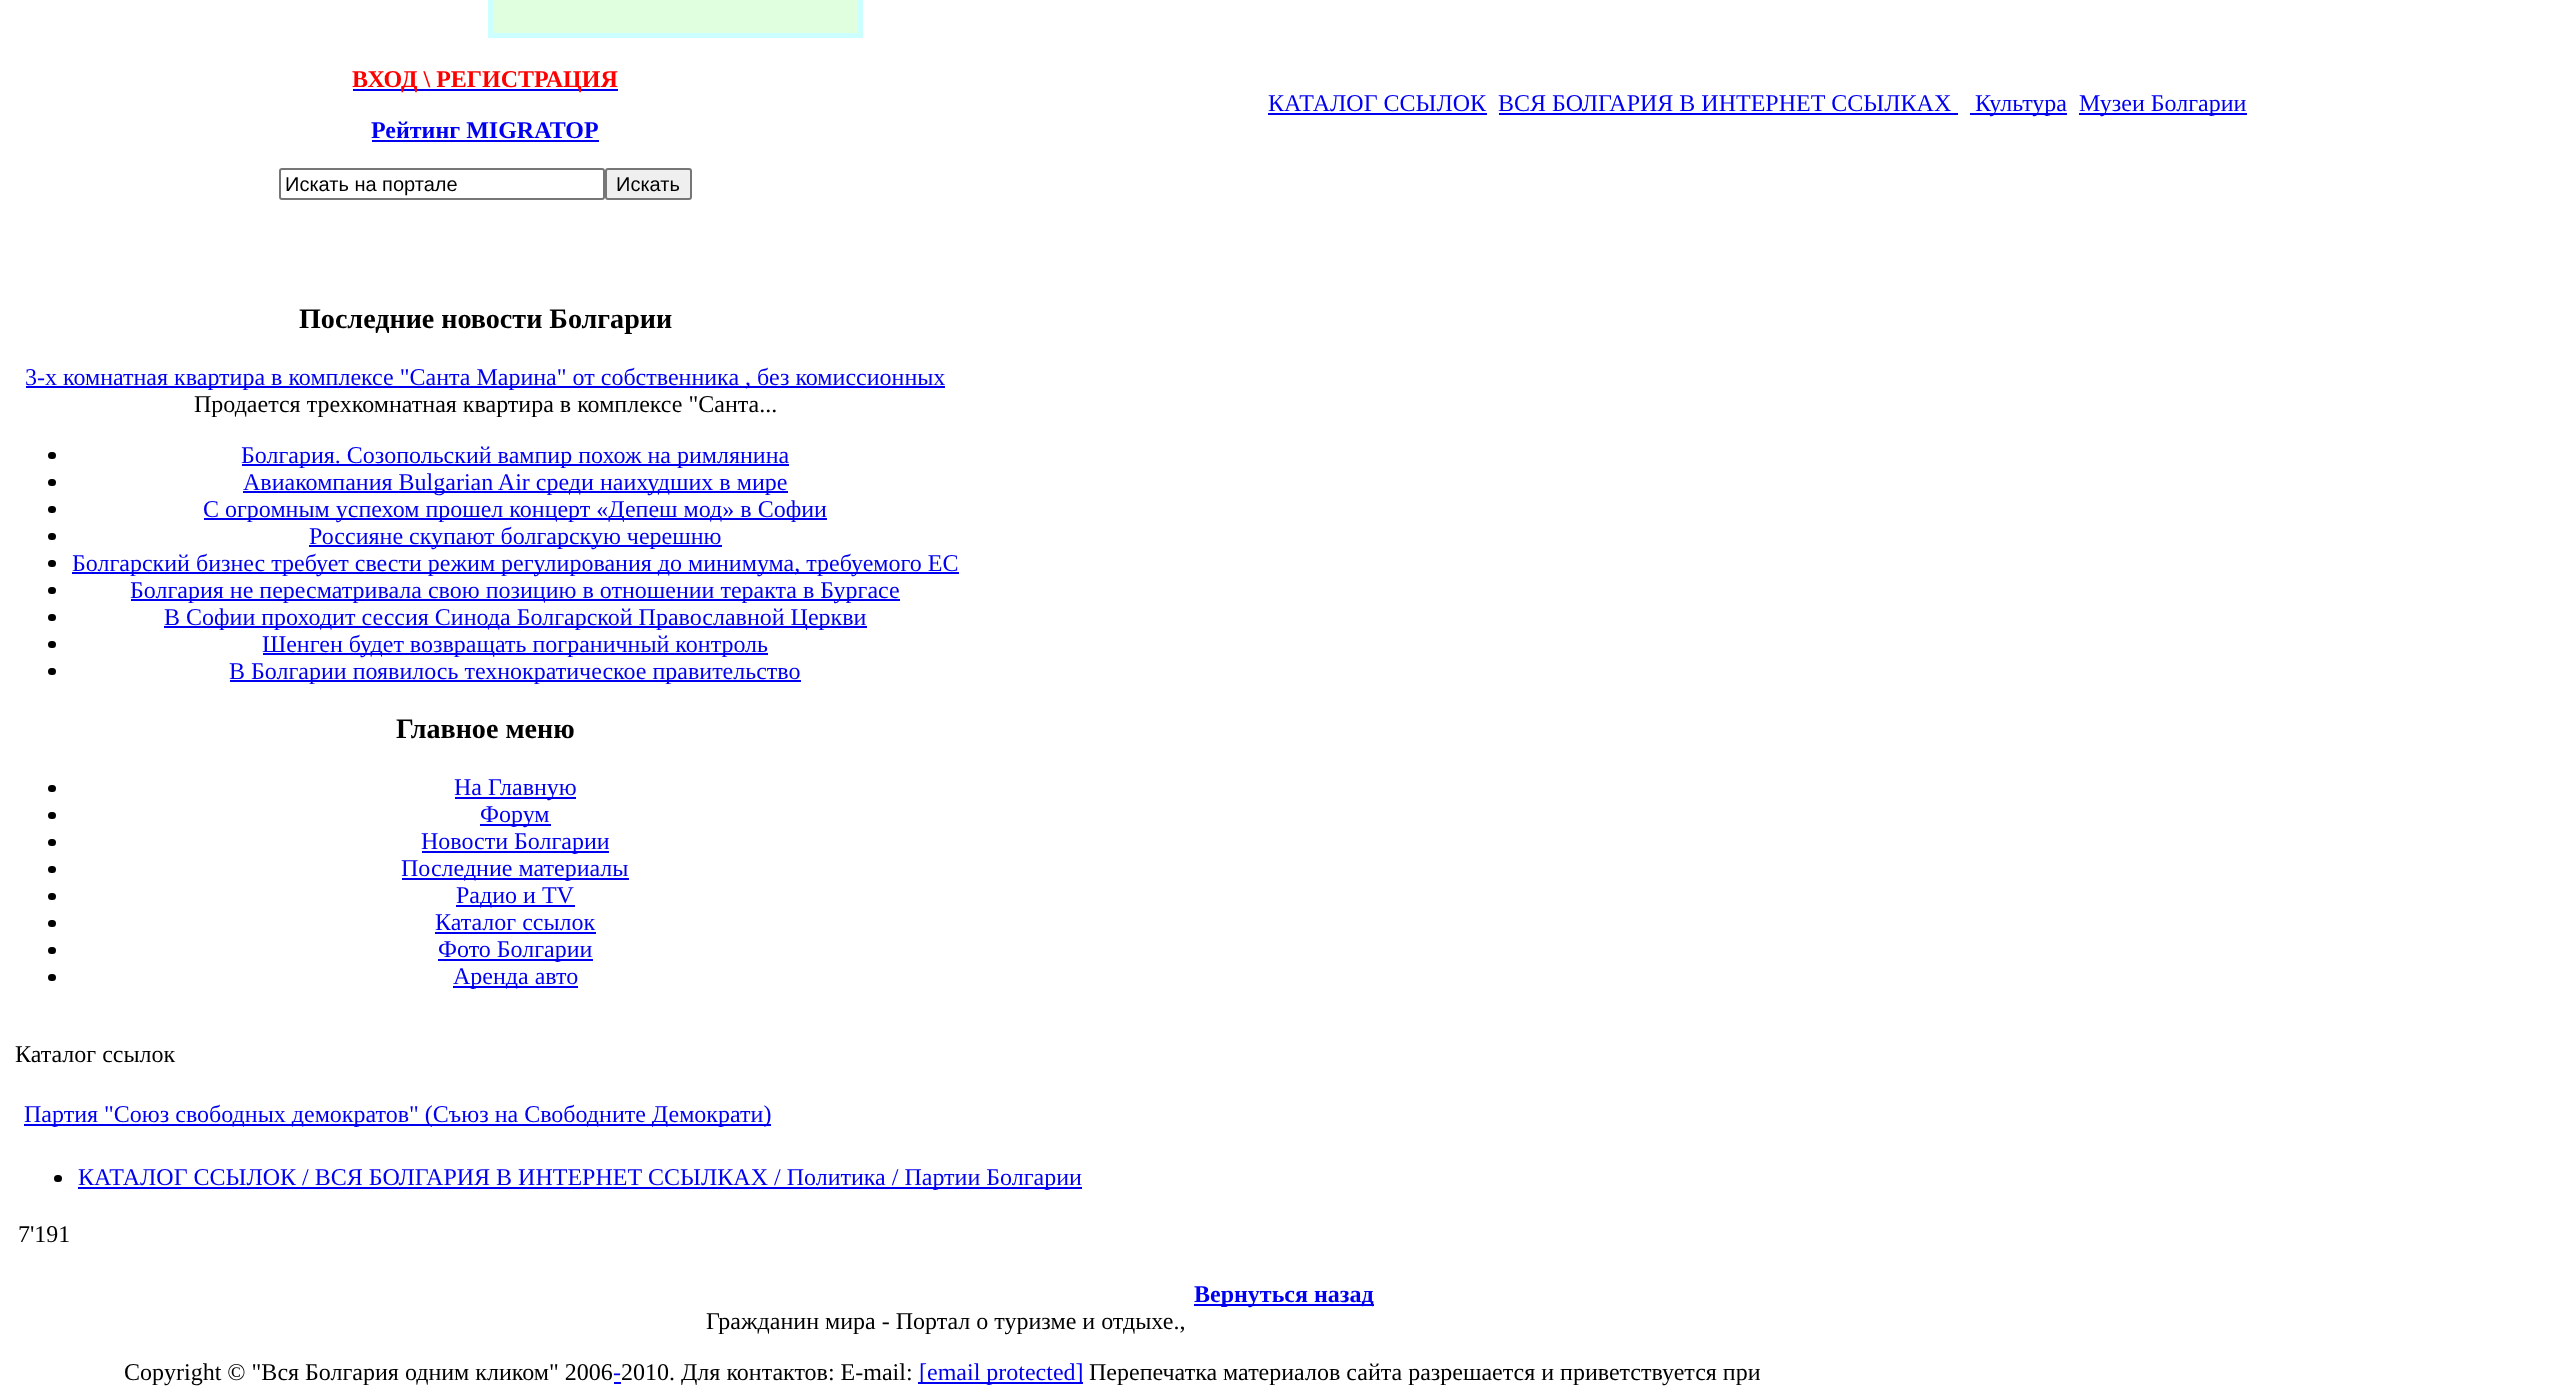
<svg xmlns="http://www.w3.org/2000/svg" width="2567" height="1386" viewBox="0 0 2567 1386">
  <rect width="100%" height="100%" fill="rgb(255,255,255)"/>
  <rect x="490.5" y="-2.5" width="370" height="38" fill="rgb(223,255,223)" stroke="rgb(204,255,255)" stroke-width="5"/>
  <rect x="353" y="89" width="265" height="2" fill="rgb(0,0,238)"/>
  <text x="352" y="87" font-family="Liberation Serif" font-size="24" font-weight="bold" fill="rgb(255,0,0)">ВХОД \ РЕГИСТРАЦИЯ</text>
  <text x="371" y="138" font-family="Liberation Serif" font-size="24" font-weight="bold" fill="rgb(0,0,238)">Рейтинг MIGRATOP</text>
  <rect x="372" y="140" width="227" height="2" fill="rgb(0,0,238)"/>
  <rect x="280" y="169" width="324" height="30" rx="2" fill="none" stroke="rgb(118,118,118)" stroke-width="2"/>
  <text x="285" y="191" font-family="Liberation Sans" font-size="20" fill="rgb(0,0,0)">Искать на портале</text>
  <rect x="606" y="169" width="85" height="30" rx="2" fill="rgb(239,239,239)" stroke="rgb(118,118,118)" stroke-width="2"/>
  <text x="616" y="191" font-family="Liberation Sans" font-size="20" fill="rgb(0,0,0)">Искать</text>
  <text x="299" y="328" font-family="Liberation Serif" font-size="28.1" font-weight="bold" fill="rgb(0,0,0)">Последние новости Болгарии</text>
  <rect x="26" y="386" width="919" height="2" fill="rgb(0,0,238)"/>
  <text x="25" y="385" font-family="Liberation Serif" font-size="24" fill="rgb(0,0,238)">3-х комнатная квартира в комплексе "Санта Марина" от собственника , без комиссионных</text>
  <text x="194" y="412" font-family="Liberation Serif" font-size="24" fill="rgb(0,0,0)">Продается трехкомнатная квартира в комплексе "Санта...</text>
  <rect x="48" y="452" width="8" height="7" rx="3.5" fill="rgb(0,0,0)"/>
  <rect x="242" y="464" width="547" height="2" fill="rgb(0,0,238)"/>
  <text x="241" y="463" font-family="Liberation Serif" font-size="24" fill="rgb(0,0,238)">Болгария. Созопольский вампир похож на римлянина</text>
  <rect x="48" y="479" width="8" height="7" rx="3.5" fill="rgb(0,0,0)"/>
  <rect x="243" y="491" width="545" height="2" fill="rgb(0,0,238)"/>
  <text x="243" y="490" font-family="Liberation Serif" font-size="24" fill="rgb(0,0,238)">Авиакомпания Bulgarian Air среди наихудших в мире</text>
  <rect x="48" y="506" width="8" height="7" rx="3.5" fill="rgb(0,0,0)"/>
  <rect x="204" y="518" width="623" height="2" fill="rgb(0,0,238)"/>
  <text x="203" y="517" font-family="Liberation Serif" font-size="24" fill="rgb(0,0,238)">С огромным успехом прошел концерт «Депеш мод» в Софии</text>
  <rect x="48" y="533" width="8" height="7" rx="3.5" fill="rgb(0,0,0)"/>
  <rect x="309" y="545" width="413" height="2" fill="rgb(0,0,238)"/>
  <text x="309" y="544" font-family="Liberation Serif" font-size="24" fill="rgb(0,0,238)">Россияне скупают болгарскую черешню</text>
  <rect x="48" y="560" width="8" height="7" rx="3.5" fill="rgb(0,0,0)"/>
  <rect x="72" y="572" width="887" height="2" fill="rgb(0,0,238)"/>
  <text x="72" y="571" font-family="Liberation Serif" font-size="24" fill="rgb(0,0,238)">Болгарский бизнес требует свести режим регулирования до минимума, требуемого ЕС</text>
  <rect x="48" y="587" width="8" height="7" rx="3.5" fill="rgb(0,0,0)"/>
  <rect x="131" y="599" width="769" height="2" fill="rgb(0,0,238)"/>
  <text x="130" y="598" font-family="Liberation Serif" font-size="24" fill="rgb(0,0,238)">Болгария не пересматривала свою позицию в отношении теракта в Бургасе</text>
  <rect x="48" y="614" width="8" height="7" rx="3.5" fill="rgb(0,0,0)"/>
  <rect x="164" y="626" width="703" height="2" fill="rgb(0,0,238)"/>
  <text x="164" y="625" font-family="Liberation Serif" font-size="24" fill="rgb(0,0,238)">В Софии проходит сессия Синода Болгарской Православной Церкви</text>
  <rect x="48" y="641" width="8" height="7" rx="3.5" fill="rgb(0,0,0)"/>
  <rect x="263" y="653" width="505" height="2" fill="rgb(0,0,238)"/>
  <text x="262" y="652" font-family="Liberation Serif" font-size="24" fill="rgb(0,0,238)">Шенген будет возвращать пограничный контроль</text>
  <rect x="48" y="668" width="8" height="7" rx="3.5" fill="rgb(0,0,0)"/>
  <rect x="230" y="680" width="571" height="2" fill="rgb(0,0,238)"/>
  <text x="229" y="679" font-family="Liberation Serif" font-size="24" fill="rgb(0,0,238)">В Болгарии появилось технократическое правительство</text>
  <text x="396" y="738" font-family="Liberation Serif" font-size="28.1" font-weight="bold" fill="rgb(0,0,0)">Главное меню</text>
  <rect x="48" y="785" width="8" height="7" rx="3.5" fill="rgb(0,0,0)"/>
  <rect x="455" y="797" width="121" height="2" fill="rgb(0,0,238)"/>
  <text x="454" y="795" font-family="Liberation Serif" font-size="24" fill="rgb(0,0,238)">На Главную</text>
  <rect x="48" y="812" width="8" height="7" rx="3.5" fill="rgb(0,0,0)"/>
  <rect x="480" y="824" width="71" height="2" fill="rgb(0,0,238)"/>
  <text x="480" y="822" font-family="Liberation Serif" font-size="24" fill="rgb(0,0,238)">Форум</text>
  <rect x="48" y="839" width="8" height="7" rx="3.5" fill="rgb(0,0,0)"/>
  <rect x="422" y="851" width="187" height="2" fill="rgb(0,0,238)"/>
  <text x="421" y="849" font-family="Liberation Serif" font-size="24" fill="rgb(0,0,238)">Новости Болгарии</text>
  <rect x="48" y="866" width="8" height="7" rx="3.5" fill="rgb(0,0,0)"/>
  <rect x="402" y="878" width="227" height="2" fill="rgb(0,0,238)"/>
  <text x="401" y="876" font-family="Liberation Serif" font-size="24" fill="rgb(0,0,238)">Последние материалы</text>
  <rect x="48" y="893" width="8" height="7" rx="3.5" fill="rgb(0,0,0)"/>
  <rect x="456" y="905" width="119" height="2" fill="rgb(0,0,238)"/>
  <text x="456" y="903" font-family="Liberation Serif" font-size="24" fill="rgb(0,0,238)">Радио и TV</text>
  <rect x="48" y="920" width="8" height="7" rx="3.5" fill="rgb(0,0,0)"/>
  <text x="435" y="930" font-family="Liberation Serif" font-size="24" fill="rgb(0,0,238)">Каталог ссылок</text>
  <rect x="435" y="932" width="161" height="2" fill="rgb(0,0,238)"/>
  <rect x="48" y="947" width="8" height="7" rx="3.5" fill="rgb(0,0,0)"/>
  <rect x="438" y="959" width="155" height="2" fill="rgb(0,0,238)"/>
  <text x="438" y="957" font-family="Liberation Serif" font-size="24" fill="rgb(0,0,238)">Фото Болгарии</text>
  <rect x="48" y="974" width="8" height="7" rx="3.5" fill="rgb(0,0,0)"/>
  <rect x="453" y="986" width="125" height="2" fill="rgb(0,0,238)"/>
  <g font-family="Liberation Serif" font-size="24" fill="rgb(0,0,238)">
    <text x="453" y="984">Аренда авто</text>
    <text x="1268" y="111">КАТАЛОГ ССЫЛОК</text>
  </g>
  <rect x="1268" y="113" width="219" height="2" fill="rgb(0,0,238)"/>
  <text x="1498" y="111" font-family="Liberation Serif" font-size="24" fill="rgb(0,0,238)">ВСЯ БОЛГАРИЯ В ИНТЕРНЕТ ССЫЛКАХ</text>
  <rect x="1499" y="113" width="459" height="2" fill="rgb(0,0,238)"/>
  <rect x="1970" y="113" width="97" height="2" fill="rgb(0,0,238)"/>
  <text x="1975" y="111" font-family="Liberation Serif" font-size="24" fill="rgb(0,0,238)">Культура</text>
  <rect x="2079" y="113" width="168" height="2" fill="rgb(0,0,238)"/>
  <text x="2079" y="111" font-family="Liberation Serif" font-size="24" fill="rgb(0,0,238)">Музеи Болгарии</text>
  <text x="15" y="1062" font-family="Liberation Serif" font-size="24" fill="rgb(0,0,0)">Каталог ссылок</text>
  <rect x="24" y="1124" width="747" height="2" fill="rgb(0,0,238)"/>
  <text x="24" y="1122" font-family="Liberation Serif" font-size="24" fill="rgb(0,0,238)">Партия "Союз свободных демократов" (Съюз на Свободните Демократи)</text>
  <rect x="54" y="1175" width="8" height="7" rx="3.5" fill="rgb(0,0,0)"/>
  <rect x="78" y="1187" width="1004" height="2" fill="rgb(0,0,238)"/>
  <text x="78" y="1185" font-family="Liberation Serif" font-size="24" fill="rgb(0,0,238)">КАТАЛОГ ССЫЛОК / ВСЯ БОЛГАРИЯ В ИНТЕРНЕТ ССЫЛКАХ / Политика / Партии Болгарии</text>
  <text x="18" y="1242" font-family="Liberation Serif" font-size="24" fill="rgb(0,0,0)">7'191</text>
  <rect x="1194" y="1304" width="180" height="2" fill="rgb(0,0,238)"/>
  <text x="1194" y="1302" font-family="Liberation Serif" font-size="24" font-weight="bold" fill="rgb(0,0,238)">Вернуться назад</text>
  <g font-family="Liberation Serif" font-size="24" fill="rgb(0,0,0)">
    <text x="706" y="1329">Гражданин мира - Портал о туризме и отдыхе.,</text>
    <text x="124" y="1380">Copyright © "Вся Болгария одним кликом" 2006</text>
  </g>
  <text x="613" y="1380" font-family="Liberation Serif" font-size="24" fill="rgb(0,0,238)">-</text>
  <rect x="614" y="1382" width="7" height="2" fill="rgb(0,0,238)"/>
  <text x="621" y="1380" font-family="Liberation Serif" font-size="24" fill="rgb(0,0,0)">2010. Для контактов: E-mail:</text>
  <rect x="918" y="1382" width="165" height="2" fill="rgb(0,0,238)"/>
  <text x="919" y="1380" font-family="Liberation Serif" font-size="24" fill="rgb(0,0,238)">[email protected]</text>
  <text x="1089" y="1380" font-family="Liberation Serif" font-size="24" fill="rgb(0,0,0)">Перепечатка материалов сайта разрешается и приветствуется при</text>
</svg>
